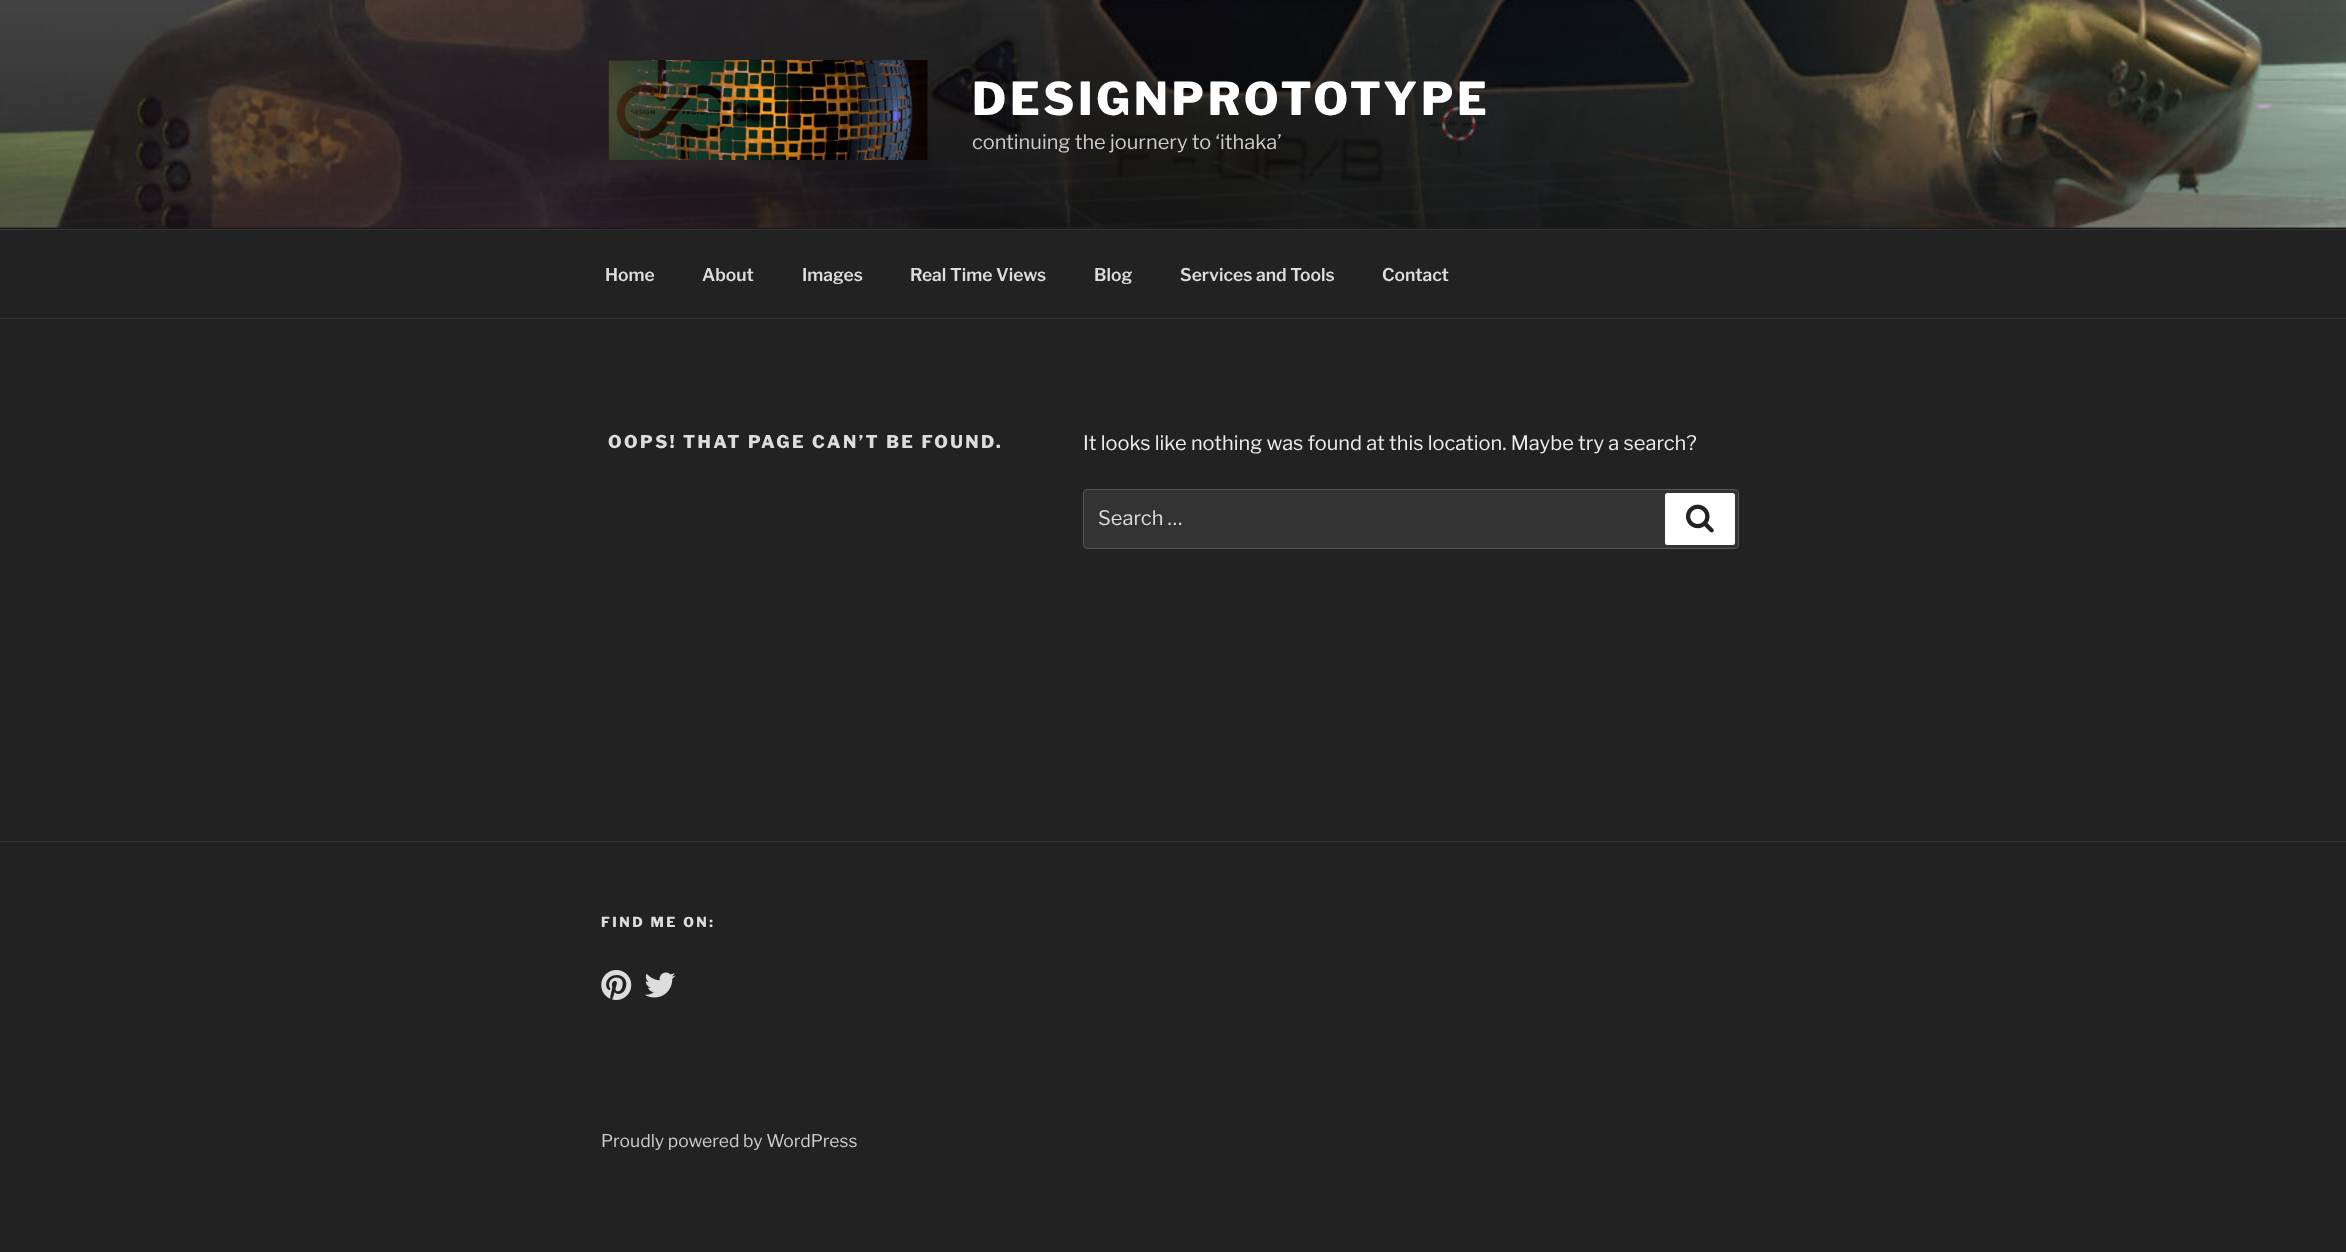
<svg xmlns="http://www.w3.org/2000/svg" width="2346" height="1252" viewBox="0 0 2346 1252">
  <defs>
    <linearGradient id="g1" gradientUnits="userSpaceOnUse" x1="1173" y1="0" x2="1173" y2="229"><stop offset="0" stop-color="rgb(0,0,0)" stop-opacity="0"/><stop offset="0.75" stop-color="rgb(0,0,0)" stop-opacity="0.3"/><stop offset="1" stop-color="rgb(0,0,0)" stop-opacity="0.3"/></linearGradient>
  </defs>
  <rect width="100%" height="100%" fill="rgb(34,34,34)"/>
  <rect x="0" y="227" width="2346" height="2" fill="rgb(38,38,38)"/>
  <image x="0" y="0" width="2346" height="228" href="pic1.png"/>
  <rect x="0" y="12" width="2346" height="217" fill="url(#g1)"/>
  <image x="608" y="60" width="320" height="100" href="pic2.png"/>
  <text x="972" y="115" font-family="Libre Franklin" font-size="45" font-weight="100" letter-spacing="3.6" fill="rgb(255,255,255)">DESIGNPROTOTYPE</text>
  <text x="972" y="149" font-family="'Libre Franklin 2'" font-size="20" font-weight="100" fill="rgb(204,204,204)">continuing the journery to ‘ithaka’</text>
  <rect x="0" y="229" width="2346" height="1" fill="rgb(51,51,51)"/>
  <rect x="0" y="318" width="2346" height="1" fill="rgb(51,51,51)"/>
  <g font-family="'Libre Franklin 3'" font-size="17.5" font-weight="100" fill="rgb(221,221,221)">
    <text x="605" y="281">Home</text>
    <text x="702" y="281">About</text>
    <text x="802" y="281">Images</text>
    <text x="910" y="281">Real Time Views</text>
    <text x="1094" y="281">Blog</text>
    <text x="1180" y="281">Services and Tools</text>
    <text x="1382" y="281">Contact</text>
  </g>
  <text x="608" y="448" font-family="Libre Franklin" font-size="17.5" font-weight="100" letter-spacing="2.45" fill="rgb(221,221,221)">OOPS! THAT PAGE CAN’T BE FOUND.</text>
  <text x="1083" y="450" font-family="'Libre Franklin 2'" font-size="20" font-weight="100" fill="rgb(238,238,238)">It looks like nothing was found at this location. Maybe try a search?</text>
  <rect x="1083.5" y="489.5" width="655" height="59" rx="3.5" fill="rgb(51,51,51)" stroke="rgb(85,85,85)"/>
  <text x="1098" y="525" font-family="'Libre Franklin 2'" font-size="20" font-weight="100" fill="rgb(221,221,221)">Search …</text>
  <rect x="1665" y="493" width="70" height="52" rx="2.5" fill="rgb(255,255,255)"/>
  <image x="1685" y="504" width="29" height="29" href="pic3.png"/>
  <rect x="0" y="841" width="2346" height="1" fill="rgb(51,51,51)"/>
  <text x="601" y="927" font-family="Libre Franklin" font-size="13.75" font-weight="100" letter-spacing="2.5" fill="rgb(221,221,221)">FIND ME ON:</text>
  <image x="601" y="970" width="31" height="30" href="pic4.png"/>
  <image x="644" y="972" width="32" height="26" href="pic5.png"/>
  <text x="601" y="1147" font-family="'Libre Franklin 2'" font-size="17.5" font-weight="100" fill="rgb(204,204,204)">Proudly powered by WordPress</text>
</svg>
